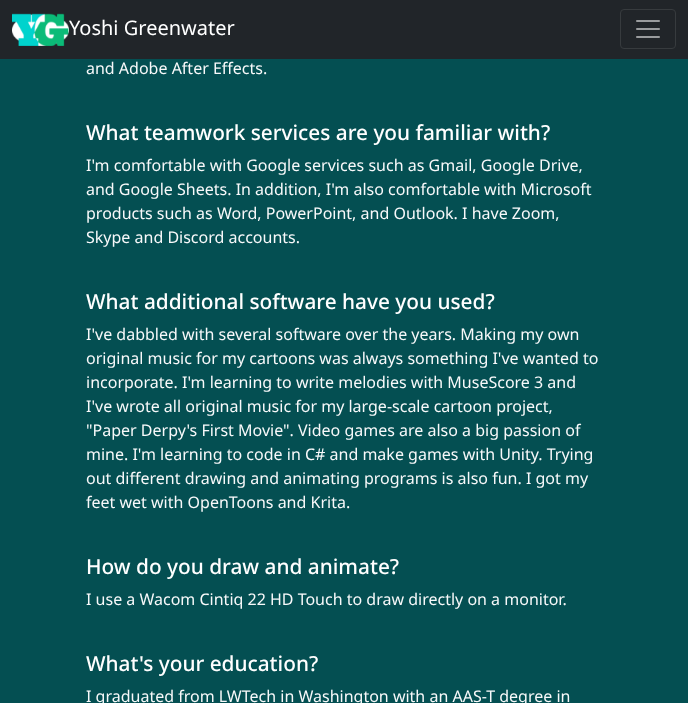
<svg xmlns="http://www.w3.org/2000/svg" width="688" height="703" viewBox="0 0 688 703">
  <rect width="100%" height="100%" fill="rgb(4,79,82)"/>
  <rect x="0" y="0" width="688" height="59" fill="rgb(33,37,41)"/>
  <image x="12" y="13" width="57" height="33" href="pic1.png"/>
  <text x="69" y="35" font-family="Noto Sans" font-size="20" fill="rgb(255,255,255)">Yoshi Greenwater</text>
  <rect x="620.5" y="9.5" width="55" height="39" rx="3.5" fill="none" stroke="rgb(55,59,62)"/>
  <image x="636" y="20" width="24" height="18" href="pic2.png"/>
  <text x="86" y="74" font-family="Noto Sans" font-size="16" fill="rgb(248,249,250)">and Adobe After Effects.</text>
  <text x="86" y="140" font-family="Noto Sans" font-size="20.8" font-weight="500" fill="rgb(255,255,255)">What teamwork services are you familiar with?</text>
  <g font-family="Noto Sans" font-size="16" fill="rgb(248,249,250)">
    <text>
      <tspan x="86" y="171">I'm comfortable with Google services such as Gmail, Google Drive,</tspan>
      <tspan x="86" y="195">and Google Sheets. In addition, I'm also comfortable with Microsoft</tspan>
      <tspan x="86" y="219">products such as Word, PowerPoint, and Outlook. I have Zoom,</tspan>
      <tspan x="86" y="243">Skype and Discord accounts.</tspan>
    </text>
  </g>
  <text x="86" y="309" font-family="Noto Sans" font-size="20.8" font-weight="500" fill="rgb(255,255,255)">What additional software have you used?</text>
  <g font-family="Noto Sans" font-size="16" fill="rgb(248,249,250)">
    <text>
      <tspan x="86" y="340">I've dabbled with several software over the years. Making my own</tspan>
      <tspan x="86" y="364">original music for my cartoons was always something I've wanted to</tspan>
      <tspan x="86" y="388">incorporate. I'm learning to write melodies with MuseScore 3 and</tspan>
      <tspan x="86" y="412">I've wrote all original music for my large-scale cartoon project,</tspan>
      <tspan x="86" y="436">"Paper Derpy's First Movie". Video games are also a big passion of</tspan>
      <tspan x="86" y="460">mine. I'm learning to code in C# and make games with Unity. Trying</tspan>
      <tspan x="86" y="484">out different drawing and animating programs is also fun. I got my</tspan>
      <tspan x="86" y="508">feet wet with OpenToons and Krita.</tspan>
    </text>
  </g>
  <text x="86" y="574" font-family="Noto Sans" font-size="20.8" font-weight="500" fill="rgb(255,255,255)">How do you draw and animate?</text>
  <text x="86" y="605" font-family="Noto Sans" font-size="16" fill="rgb(248,249,250)">I use a Wacom Cintiq 22 HD Touch to draw directly on a monitor.</text>
  <text x="86" y="671" font-family="Noto Sans" font-size="20.8" font-weight="500" fill="rgb(255,255,255)">What's your education?</text>
  <text x="86" y="702" font-family="Noto Sans" font-size="16" fill="rgb(248,249,250)">I graduated from LWTech in Washington with an AAS-T degree in</text>
</svg>
